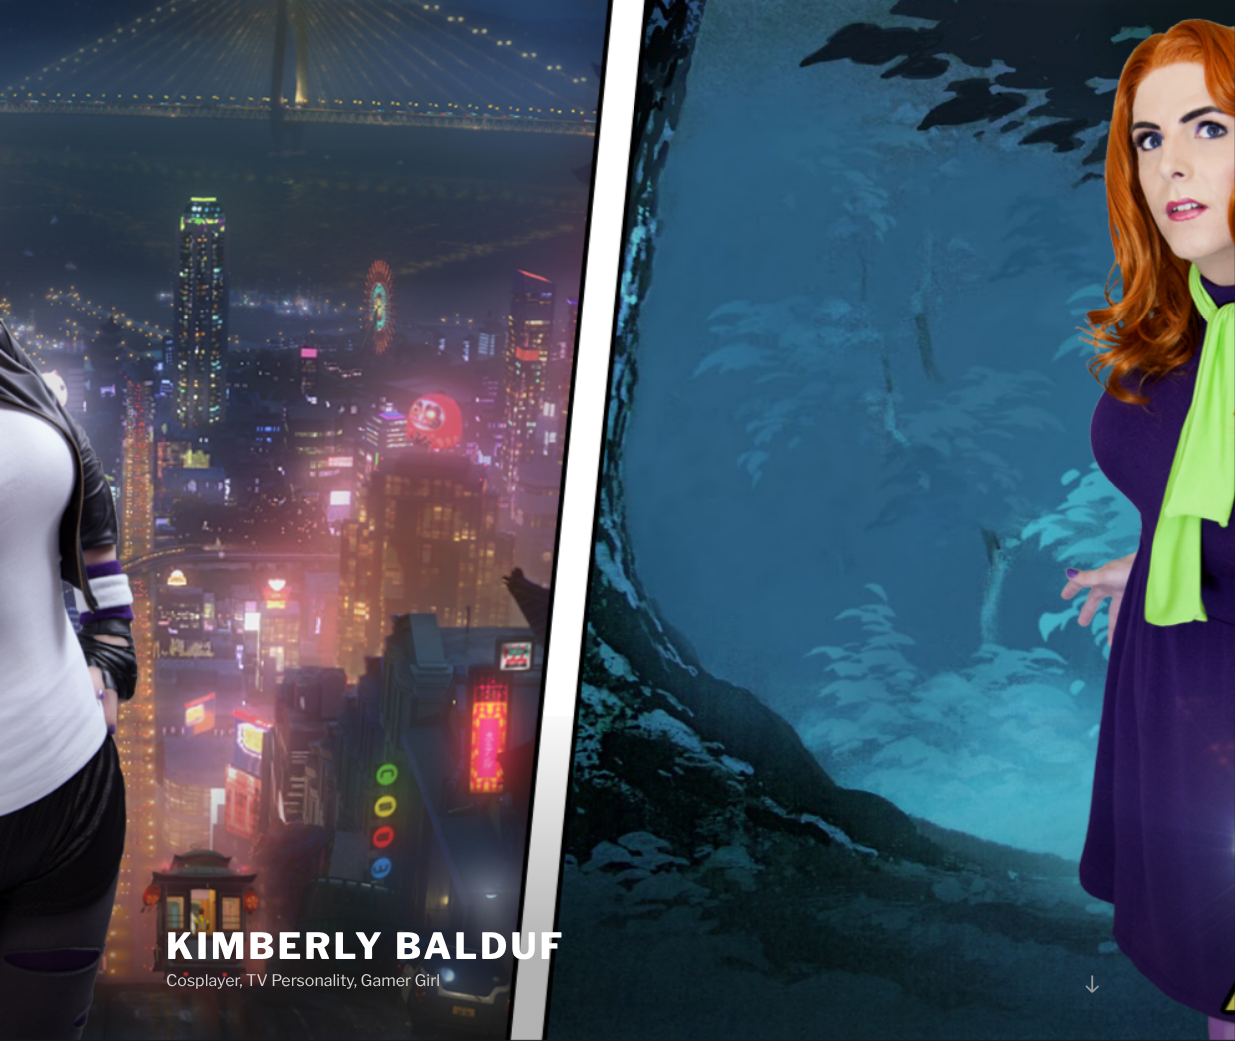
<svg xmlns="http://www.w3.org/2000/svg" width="1235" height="1041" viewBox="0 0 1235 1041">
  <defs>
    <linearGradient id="g1" gradientUnits="userSpaceOnUse" x1="618" y1="697" x2="618" y2="1041"><stop offset="0" stop-color="rgb(0,0,0)" stop-opacity="0"/><stop offset="0.75" stop-color="rgb(0,0,0)" stop-opacity="0.3"/><stop offset="1" stop-color="rgb(0,0,0)" stop-opacity="0.3"/></linearGradient>
  </defs>
  <rect width="100%" height="100%" fill="rgb(38,38,38)"/>
  <image x="0" y="0" width="1235" height="1041" href="pic1.png"/>
  <rect x="0" y="716" width="1235" height="325" fill="url(#g1)"/>
  <text x="166" y="959" font-family="Libre Franklin" font-size="36" font-weight="100" letter-spacing="2.9" fill="rgb(255,255,255)">KIMBERLY BALDUF</text>
  <text x="166" y="986" font-family="'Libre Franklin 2'" font-size="16" font-weight="100" fill="rgb(212,210,210)">Cosplayer, TV Personality, Gamer Girl</text>
  <image x="1085" y="975" width="14" height="18" href="pic2.png"/>
</svg>
